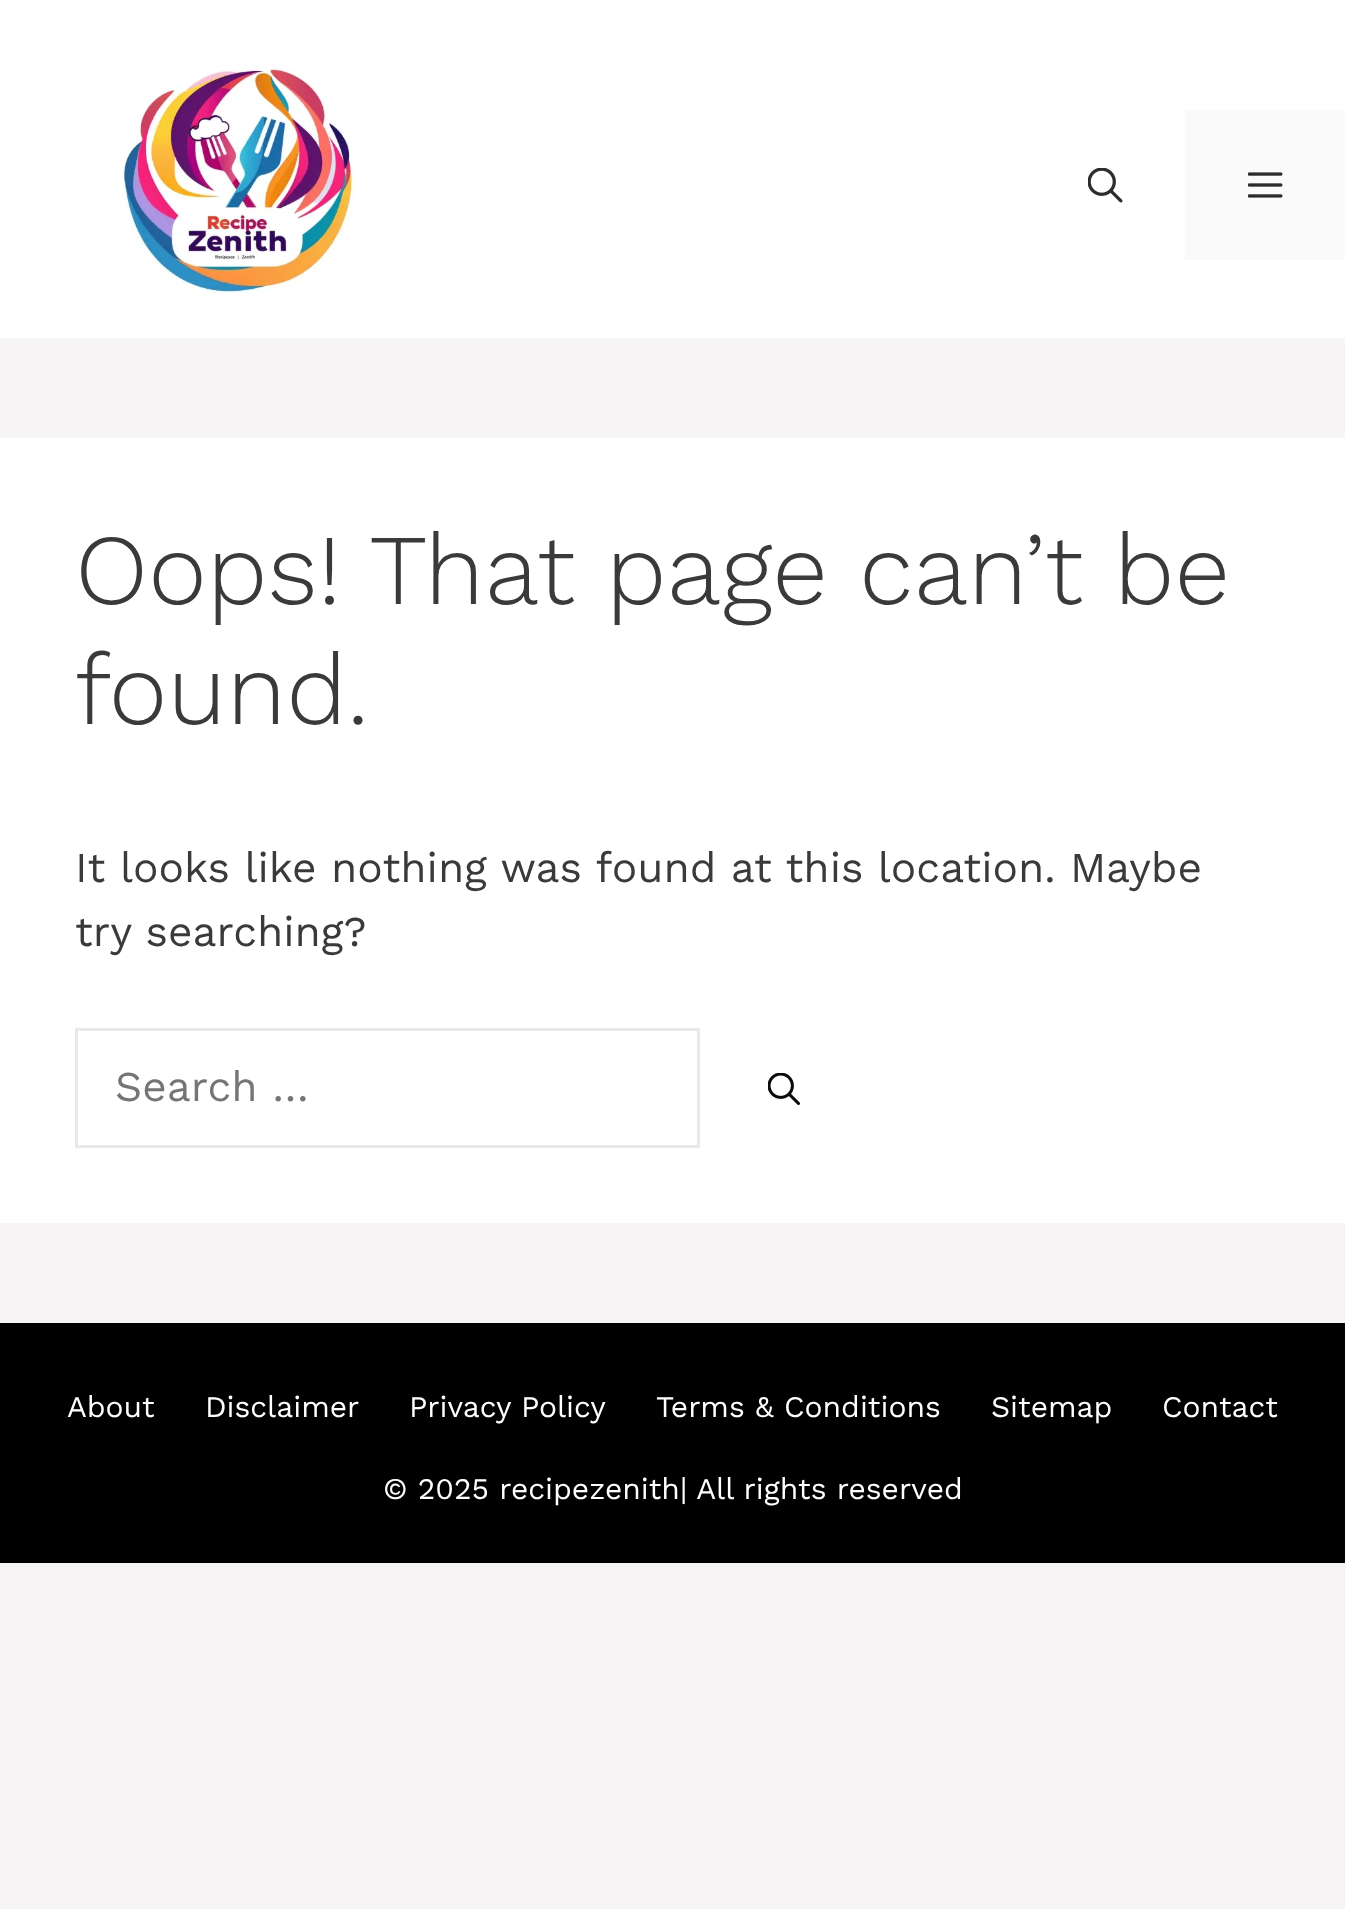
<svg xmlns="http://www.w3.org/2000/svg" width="1345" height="1909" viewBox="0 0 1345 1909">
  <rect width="100%" height="100%" fill="rgb(247,244,246)"/>
  <rect x="0" y="0" width="1345" height="338" fill="rgb(255,255,255)"/>
  <image x="120" y="68" width="235" height="226" href="pic1.png"/>
  <image x="1088" y="168" width="35" height="35" href="pic2.png"/>
  <rect x="1185" y="110" width="160" height="150" fill="rgb(250,250,250)"/>
  <image x="1248" y="172" width="35" height="26" href="pic3.png"/>
  <rect x="0" y="438" width="1345" height="785" fill="rgb(255,255,255)"/>
  <g font-family="Work Sans" font-size="100" font-weight="300" fill="rgb(58,58,58)">
    <text>
      <tspan x="75" y="604">Oops! That page can’t be</tspan>
      <tspan x="75" y="724">found.</tspan>
    </text>
  </g>
  <g font-family="Work Sans" font-size="42.5" fill="rgb(58,58,58)">
    <text>
      <tspan x="75" y="882">It looks like nothing was found at this location. Maybe</tspan>
      <tspan x="75" y="946">try searching?</tspan>
    </text>
  </g>
  <rect x="76.5" y="1029.5" width="622" height="117" fill="none" stroke="rgb(232,232,232)" stroke-width="3"/>
  <text x="115" y="1101" font-family="Work Sans" font-size="42.5" fill="rgb(117,117,117)">Search …</text>
  <image x="768" y="1073" width="32" height="32" href="pic4.png"/>
  <rect x="0" y="1323" width="1345" height="240" fill="rgb(0,0,0)"/>
  <g font-family="Work Sans" font-size="30" fill="rgb(255,255,255)">
    <text x="67" y="1417">About</text>
    <text x="205" y="1417">Disclaimer</text>
    <text x="409" y="1417">Privacy Policy</text>
    <text x="656" y="1417">Terms &amp; Conditions</text>
    <text x="991" y="1417">Sitemap</text>
    <text x="1162" y="1417">Contact</text>
    <text x="383" y="1499">© 2025 recipezenith| All rights reserved</text>
  </g>
</svg>
